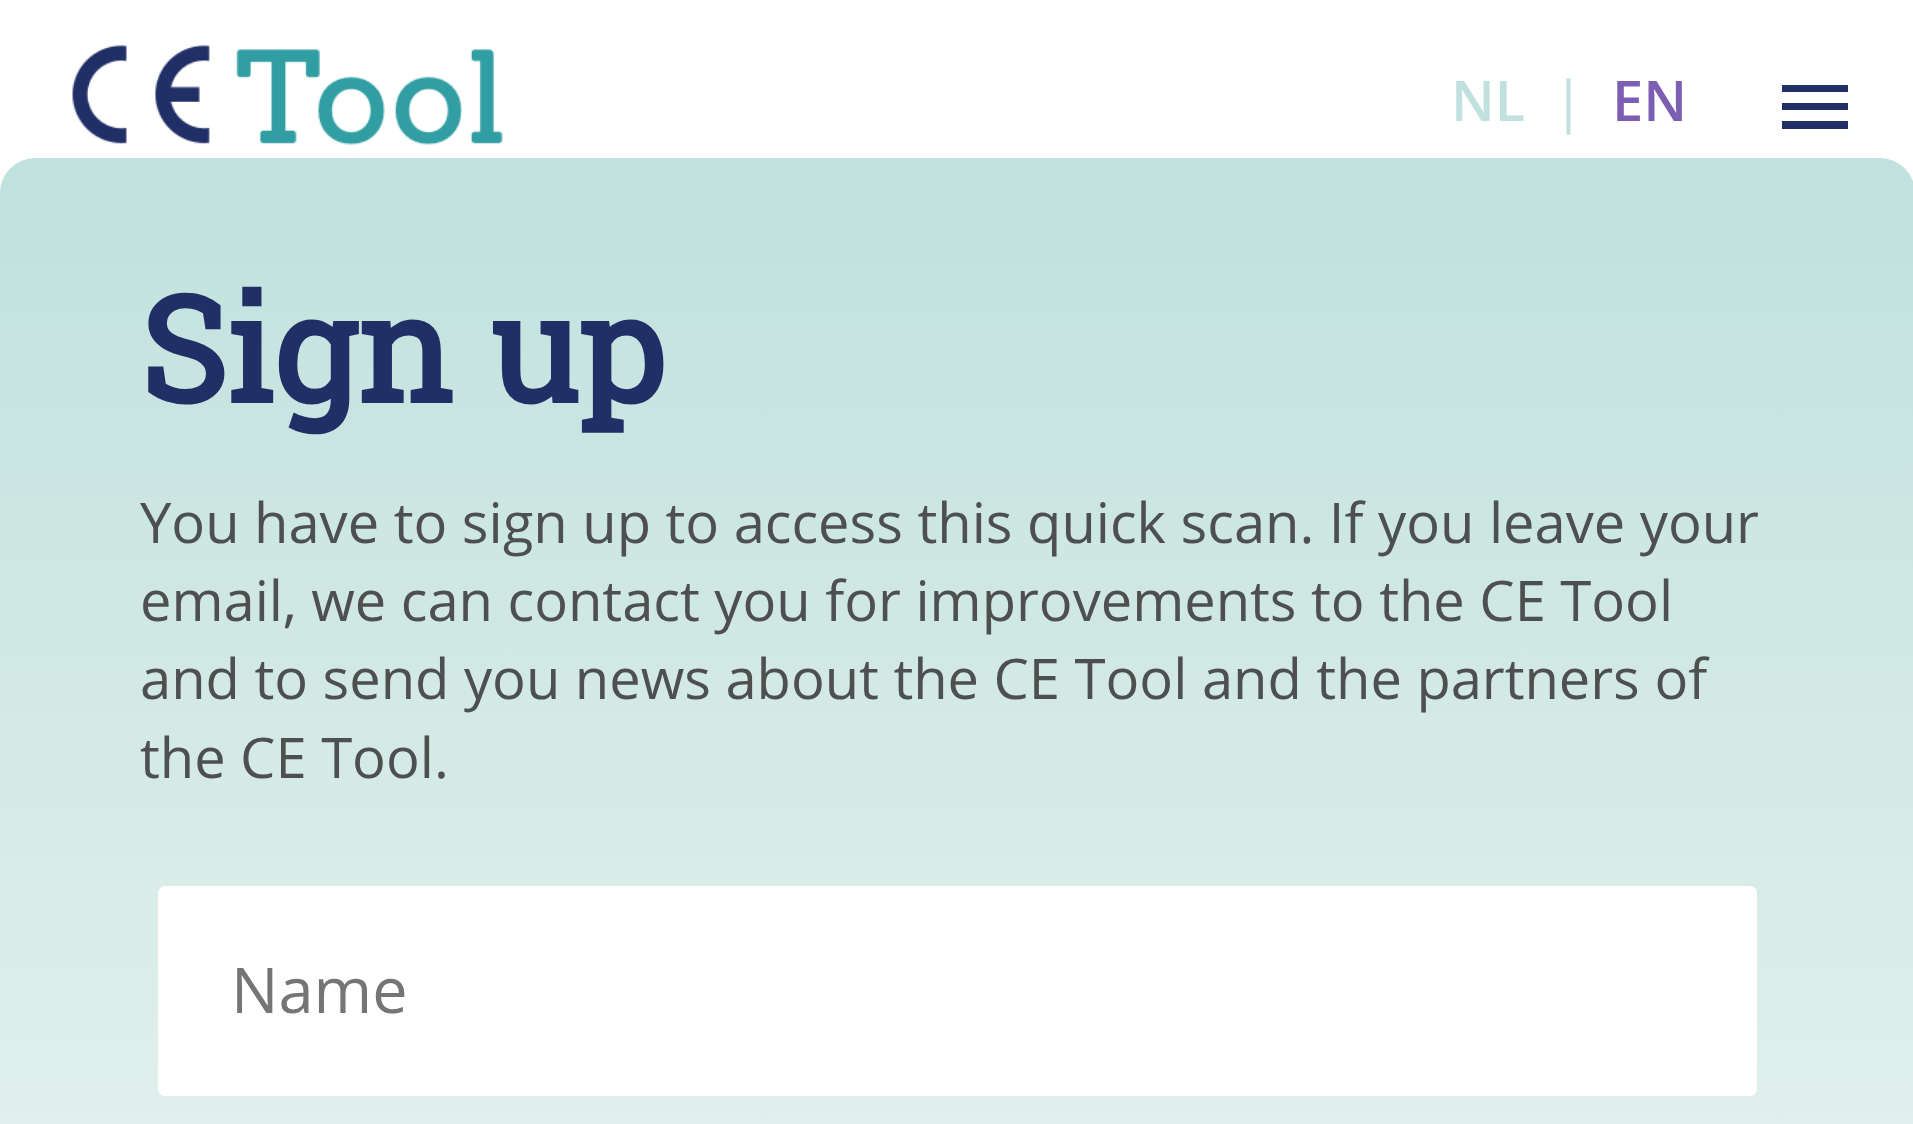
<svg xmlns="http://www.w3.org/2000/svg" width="1913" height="1124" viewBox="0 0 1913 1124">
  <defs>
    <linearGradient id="g1" gradientUnits="userSpaceOnUse" x1="957" y1="157" x2="957" y2="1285"><stop offset="0" stop-color="rgb(192,225,221)"/><stop offset="1" stop-color="rgb(230,242,238)"/></linearGradient>
  </defs>
  <rect width="100%" height="100%" fill="rgb(255,255,255)"/>
  <image x="72" y="45" width="431" height="100" href="pic1.png"/>
  <text x="1451" y="121" font-family="Open Sans" font-size="56" font-weight="600" fill="rgb(192,225,221)">NL</text>
  <text x="1553" y="121" font-family="Open Sans" font-size="56" fill="rgb(192,225,221)">|</text>
  <text x="1612" y="121" font-family="Open Sans" font-size="56" font-weight="600" fill="rgb(124,95,178)">EN</text>
  <path d="M1782 129H1848V121H1782ZM1782 110H1848V103H1782ZM1782 85V92H1848V85Z" fill="rgb(33,47,103)"/>
  <rect x="0" y="158" width="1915" height="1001" rx="35" fill="url(#g1)"/>
  <text x="140" y="403" font-family="Roboto Slab" font-size="147" font-weight="bold" fill="rgb(33,47,103)">Sign up</text>
  <g font-family="Open Sans" font-size="56" fill="rgb(78,79,79)">
    <text>
      <tspan x="140" y="543">You have to sign up to access this quick scan. If you leave your</tspan>
      <tspan x="140" y="621">email, we can contact you for improvements to the CE Tool</tspan>
      <tspan x="140" y="699">and to send you news about the CE Tool and the partners of</tspan>
      <tspan x="140" y="778">the CE Tool.</tspan>
    </text>
  </g>
  <rect x="160" y="888" width="1595" height="206" rx="5" fill="rgb(255,255,255)" stroke="rgb(255,255,255)" stroke-width="4"/>
  <text x="231" y="1013" font-family="Open Sans" font-size="63" fill="rgb(117,117,117)">Name</text>
</svg>
